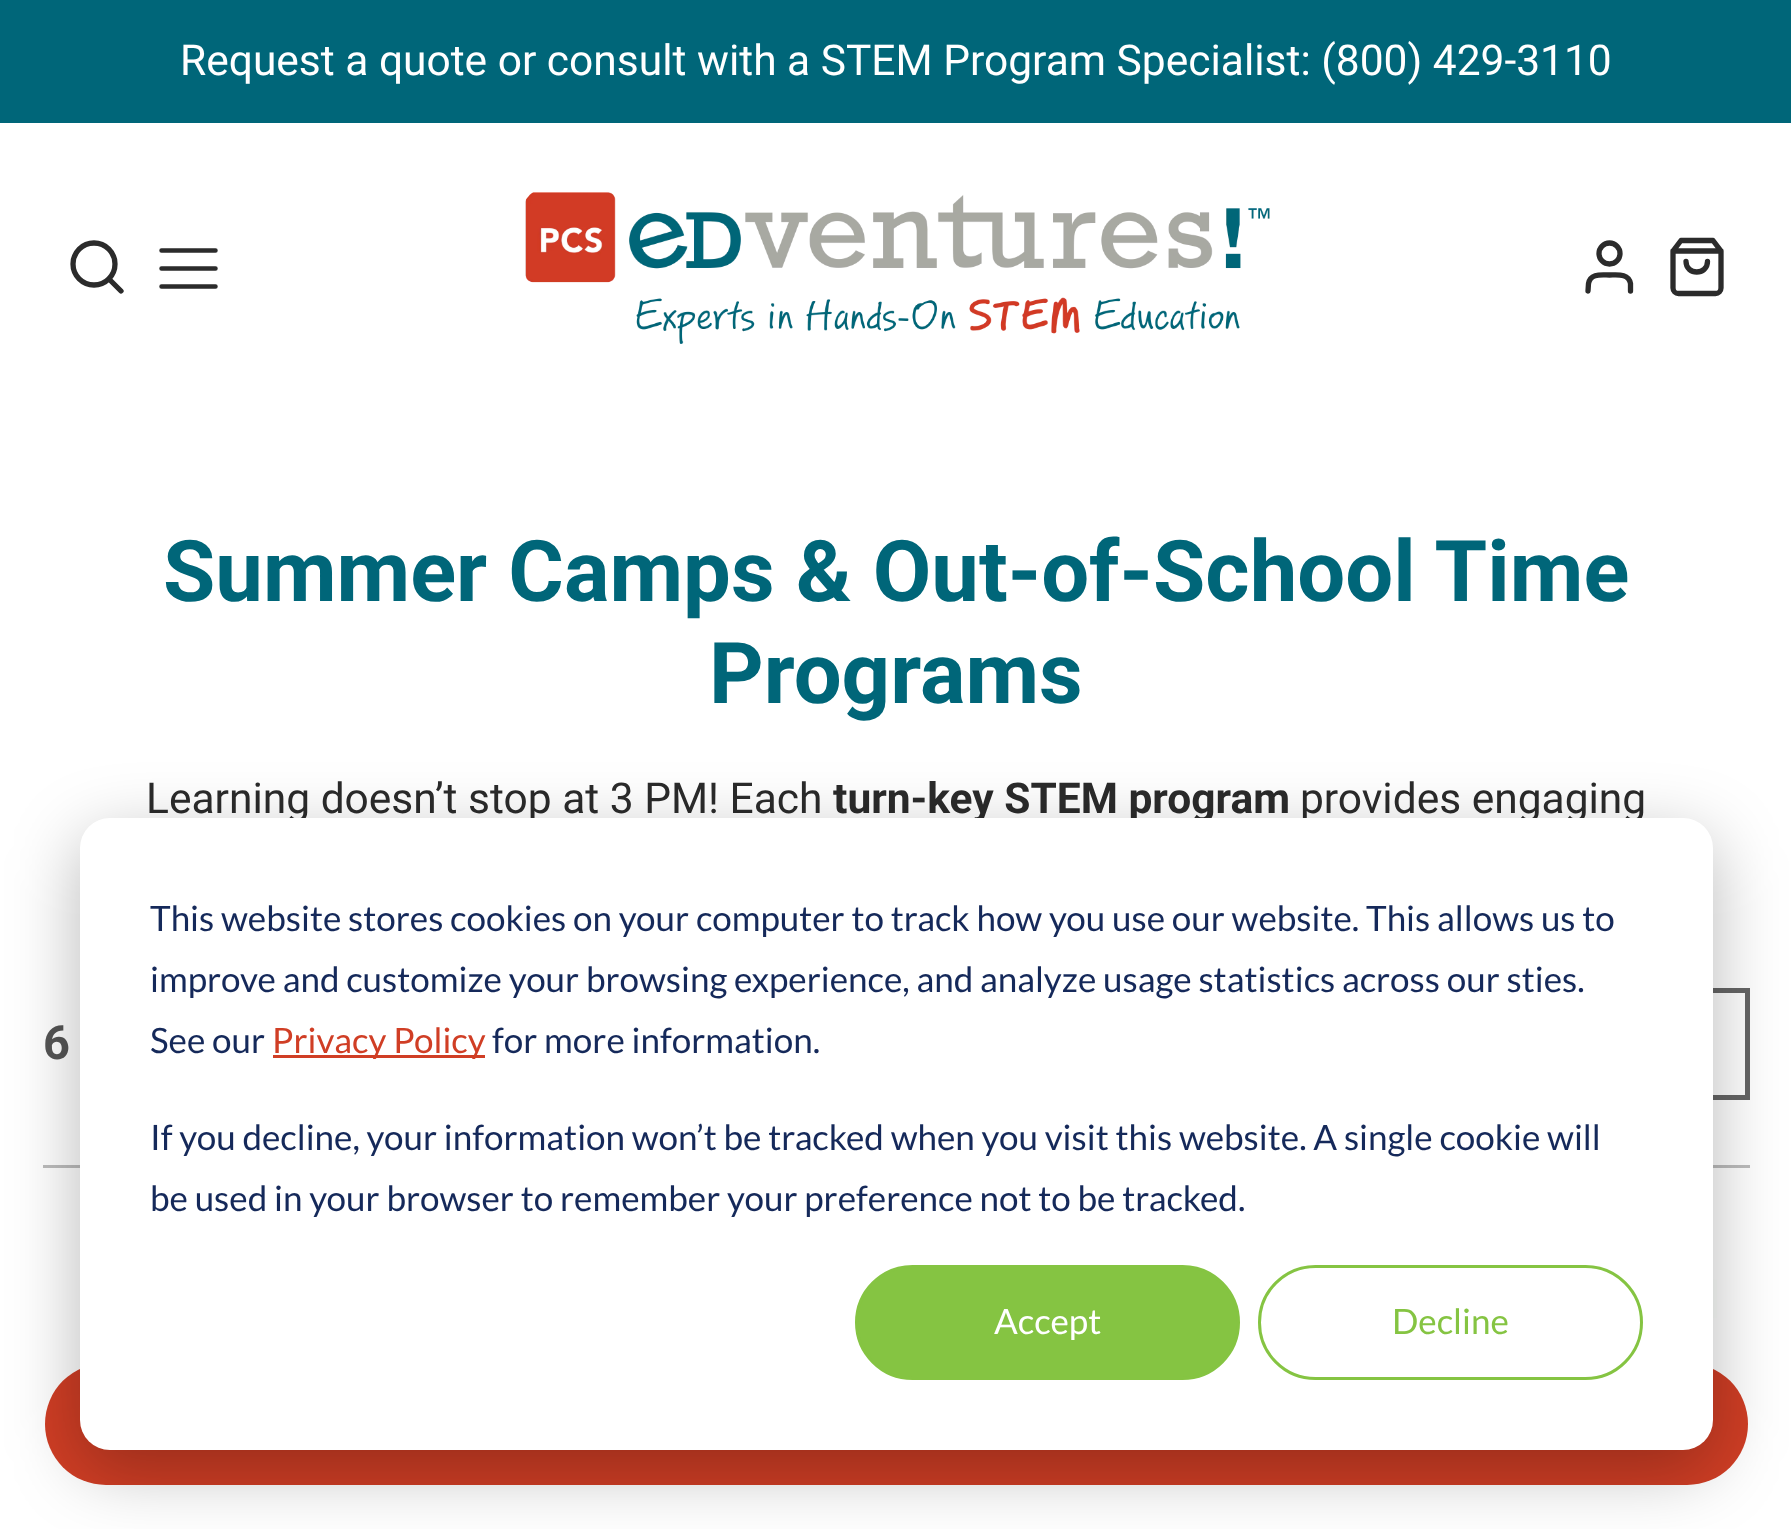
<svg xmlns="http://www.w3.org/2000/svg" width="1791" height="1529" viewBox="0 0 1791 1529">
  <rect width="100%" height="100%" fill="rgb(255,255,255)"/>
  <rect x="0" y="0" width="1791" height="123" fill="rgb(0,102,121)"/>
  <text x="180" y="75" font-family="Roboto" font-size="42.5" fill="rgb(255,255,255)">Request a quote or consult with a STEM Program Specialist: (800) 429-3110</text>
  <circle cx="94" cy="264" r="21" fill="none" stroke="rgb(43,43,43)" stroke-width="5.3"/>
  <path d="M121 291L109 279" fill="none" stroke="rgb(43,43,43)" stroke-width="5.3" stroke-linecap="round" stroke-linejoin="round"/>
  <path d="M161.5 268.5H215.5M161.5 250.5H215.5M161.5 286.5H215.5" fill="none" stroke="rgb(43,43,43)" stroke-width="4.5" stroke-linecap="round" stroke-linejoin="round"/>
  <image x="525" y="192" width="745" height="152" href="pic1.png"/>
  <circle cx="1609.5" cy="253.5" r="10.5" fill="none" stroke="rgb(43,43,43)" stroke-width="5.3"/>
  <path d="M1630.5 291V283.5C1628.5 273 1617 275 1609.5 275C1601.5 275 1590.5 273 1588.5 283.5L1588 291" fill="none" stroke="rgb(43,43,43)" stroke-width="5.3" stroke-linecap="round" stroke-linejoin="round"/>
  <path d="M1681 240.5L1673 251V288C1673 291 1675.5 293.5 1678.5 293.5H1715.5C1718.5 293.5 1721 291 1721 288V251L1713 240.5ZM1673 251H1721M1707.5 261.5C1707.5 275.5 1686 275.5 1686 261.5" fill="none" stroke="rgb(43,43,43)" stroke-width="5.3" stroke-linecap="round" stroke-linejoin="round"/>
  <g font-family="Roboto" font-size="85" font-weight="bold" fill="rgb(0,102,121)">
    <text x="163" y="601">Summer Camps &amp; Out-of-School Time</text>
    <text x="709" y="703">Programs</text>
  </g>
  <text x="146" y="813" font-family="Roboto" font-size="42.5" fill="rgb(43,43,43)">Learning doesn’t stop at 3 PM! Each</text>
  <text x="833" y="813" font-family="Roboto" font-size="42.5" font-weight="bold" fill="rgb(43,43,43)">turn-key STEM program</text>
  <text x="1300" y="813" font-family="Roboto" font-size="42.5" fill="rgb(43,43,43)">provides engaging</text>
  <rect x="43" y="1165" width="1707" height="3" fill="rgb(189,189,189)"/>
  <text x="43" y="1059" font-family="Roboto" font-size="47" font-weight="bold" fill="rgb(85,85,85)">6</text>
  <rect x="1215.5" y="990.5" width="532" height="107" fill="none" stroke="rgb(102,102,102)" stroke-width="5"/>
  <image x="1713" y="1268" width="4" height="50" href="pic2.png"/>
  <rect x="45" y="1363" width="1703" height="122" rx="61" fill="rgb(208,62,37)"/>
  <rect x="80" y="838" width="1633" height="632" rx="30" fill="rgba(0,0,0,0.28)" filter="blur(35px)"/>
  <rect x="80" y="818" width="1633" height="632" rx="30" fill="rgb(255,255,255)"/>
  <g font-family="Lato" font-size="35" fill="rgb(21,41,90)">
    <text>
      <tspan x="150" y="931">This website stores cookies on your computer to track how you use our website. This allows us to</tspan>
      <tspan x="150" y="992">improve and customize your browsing experience, and analyze usage statistics across our sties.</tspan>
      <tspan x="150" y="1053">See our</tspan>
    </text>
  </g>
  <rect x="273" y="1055" width="212" height="3" fill="rgb(208,62,37)"/>
  <text x="272" y="1053" font-family="Lato" font-size="35" fill="rgb(208,62,37)">Privacy Policy</text>
  <g font-family="Lato" font-size="35" fill="rgb(21,41,90)">
    <text x="492" y="1053">for more information.</text>
    <text>
      <tspan x="150" y="1150">If you decline, your information won’t be tracked when you visit this website. A single cookie will</tspan>
      <tspan x="150" y="1211">be used in your browser to remember your preference not to be tracked.</tspan>
    </text>
  </g>
  <rect x="856.5" y="1266.5" width="382" height="112" rx="56" fill="rgb(133,196,66)" stroke="rgb(133,196,66)" stroke-width="3"/>
  <text x="994" y="1334" font-family="Lato" font-size="35" fill="rgb(255,255,255)">Accept</text>
  <rect x="1259.5" y="1266.5" width="382" height="112" rx="56" fill="none" stroke="rgb(133,196,66)" stroke-width="3"/>
  <text x="1392" y="1334" font-family="Lato" font-size="35" fill="rgb(133,196,66)">Decline</text>
</svg>
